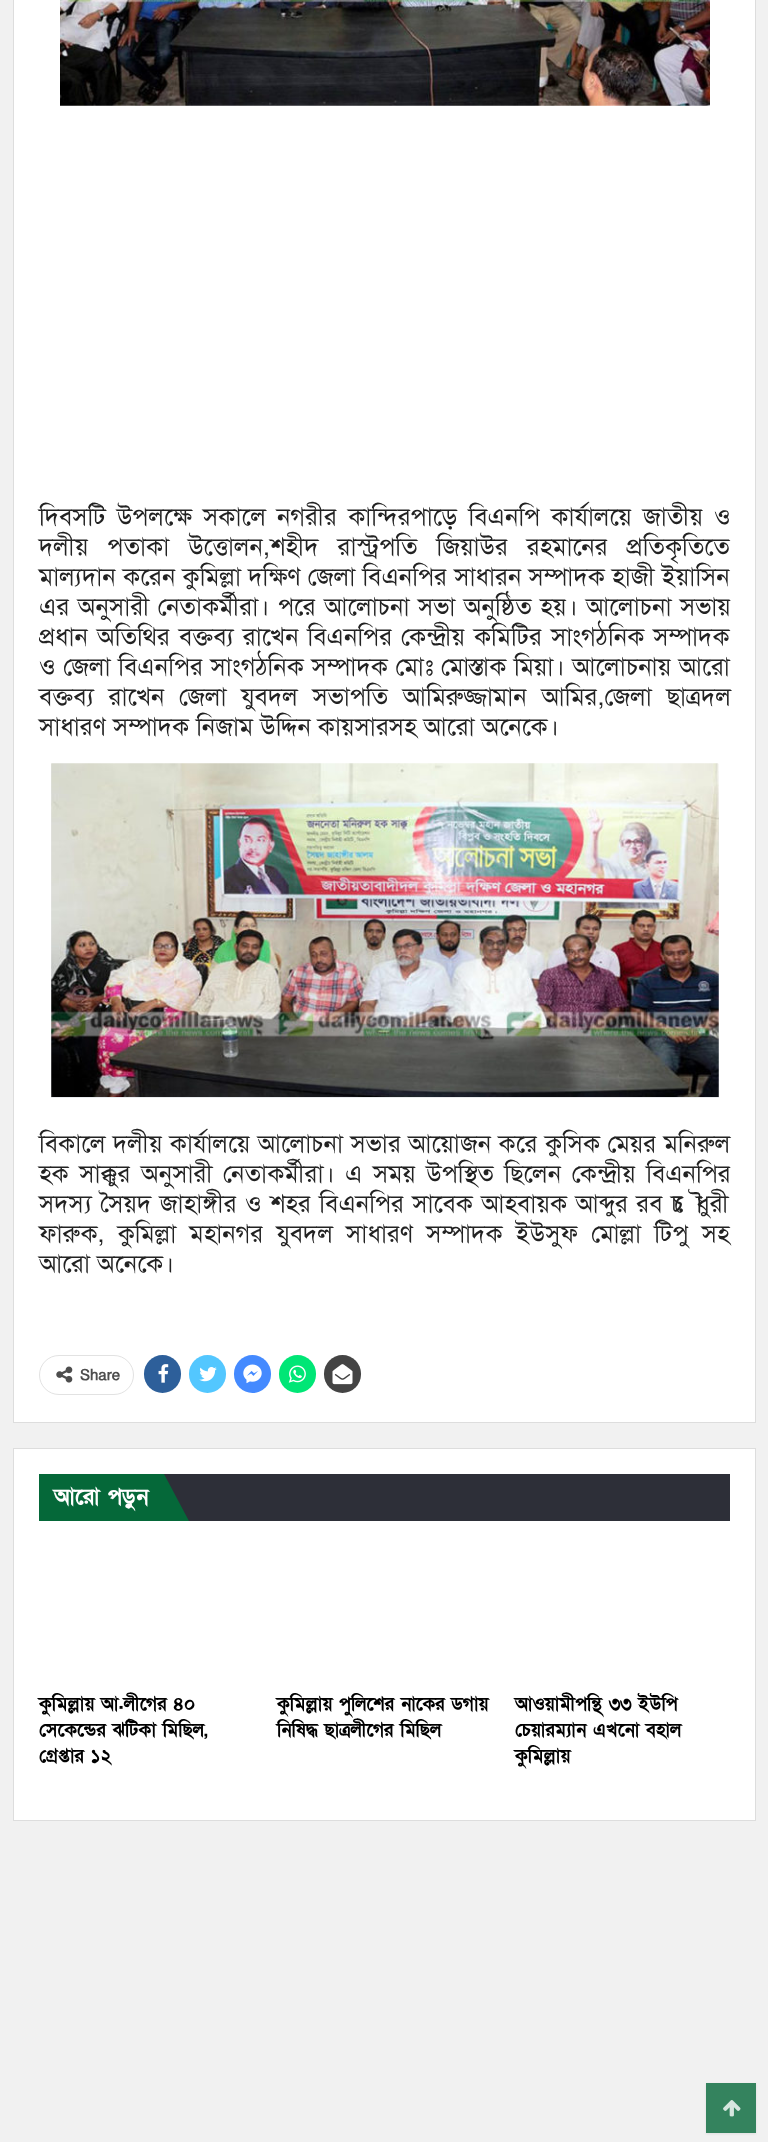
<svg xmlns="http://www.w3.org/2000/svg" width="768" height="2142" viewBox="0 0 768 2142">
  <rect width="100%" height="100%" fill="rgb(241,241,241)"/>
  <rect x="13.5" y="-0.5" width="742" height="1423" fill="rgb(255,255,255)" stroke="rgb(221,221,221)"/>
  <image x="60" y="0" width="650" height="106" href="pic1.png"/>
  <g font-family="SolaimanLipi" font-size="25" fill="rgb(34,34,34)">
    <text>
      <tspan x="39" y="525" word-spacing="4.25">দিবসটি উপলক্ষে সকালে নগরীর কান্দিরপাড়ে বিএনপি কার্যালয়ে জাতীয় ও</tspan>
      <tspan x="39" y="555" word-spacing="12">দলীয় পতাকা উত্তোলন,শহীদ রাস্ট্রপতি জিয়াউর রহমানের প্রতিকৃতিতে</tspan>
      <tspan x="39" y="585" word-spacing="0.25">মাল্যদান করেন কুমিল্লা দক্ষিণ জেলা বিএনপির সাধারন সম্পাদক হাজী ইয়াসিন</tspan>
      <tspan x="39" y="615" word-spacing="1.5">এর অনুসারী নেতাকর্মীরা। পরে আলোচনা সভা অনুষ্ঠিত হয়। আলোচনা সভায়</tspan>
      <tspan x="39" y="645" word-spacing="2">প্রধান অতিথির বক্তব্য রাখেন বিএনপির কেন্দ্রীয় কমিটির সাংগঠনিক সম্পাদক</tspan>
      <tspan x="39" y="675" word-spacing="0.75">ও জেলা বিএনপির সাংগঠনিক সম্পাদক মোঃ মোস্তাক মিয়া। আলোচনায় আরো</tspan>
      <tspan x="39" y="705" word-spacing="7.75">বক্তব্য রাখেন জেলা যুবদল সভাপতি আমিরুজ্জামান আমির,জেলা ছাত্রদল</tspan>
      <tspan x="39" y="735">সাধারণ সম্পাদক নিজাম উদ্দিন কায়সারসহ আরো অনেকে।</tspan>
    </text>
  </g>
  <rect x="51" y="764" width="668" height="334" fill="rgb(233,235,238)"/>
  <image x="51" y="763" width="668" height="334" href="pic2.png"/>
  <g font-family="SolaimanLipi" font-size="25" fill="rgb(34,34,34)">
    <text>
      <tspan x="39" y="1152" word-spacing="0.5">বিকালে দলীয় কার্যালয়ে আলোচনা সভার আয়োজন করে কুসিক মেয়র মনিরুল</tspan>
      <tspan x="39" y="1182" word-spacing="3.5">হক সাক্কুর অনুসারী নেতাকর্মীরা। এ সময় উপস্থিত ছিলেন কেন্দ্রীয় বিএনপির</tspan>
      <tspan x="39" y="1212" word-spacing="1.4">সদস্য সৈয়দ জাহাঙ্গীর ও শহর বিএনপির সাবেক আহবায়ক আব্দুর রব চৌধুরী</tspan>
      <tspan x="39" y="1242" word-spacing="6.25">ফারুক, কুমিল্লা মহানগর যুবদল সাধারণ সম্পাদক ইউসুফ মোল্লা টিপু সহ</tspan>
      <tspan x="39" y="1272">আরো অনেকে।</tspan>
    </text>
  </g>
  <rect x="39.5" y="1355.5" width="94" height="39" rx="19.5" fill="none" stroke="rgb(226,226,226)"/>
  <image x="56" y="1366" width="17" height="17" href="pic3.png"/>
  <text x="80" y="1380" font-family="SolaimanLipi" font-size="15" font-weight="bold" fill="rgb(77,77,77)">Share</text>
  <rect x="144" y="1355" width="37" height="38" rx="18.5" fill="rgb(45,95,154)"/>
  <image x="158" y="1364" width="11" height="19" href="pic4.png"/>
  <rect x="189" y="1355" width="37" height="38" rx="18.5" fill="rgb(83,199,255)"/>
  <image x="199" y="1367" width="18" height="15" href="pic5.png"/>
  <rect x="234" y="1355" width="37" height="38" rx="18.5" fill="rgb(68,138,255)"/>
  <image x="243" y="1364" width="19" height="20" href="pic6.png"/>
  <rect x="279" y="1355" width="37" height="38" rx="18.5" fill="rgb(0,230,118)"/>
  <image x="288" y="1365" width="18" height="18" href="pic7.png"/>
  <rect x="324" y="1355" width="37" height="38" rx="18.5" fill="rgb(68,68,68)"/>
  <image x="332" y="1364" width="21" height="21" href="pic8.png"/>
  <rect x="13.5" y="1448.5" width="742" height="372" fill="rgb(255,255,255)" stroke="rgb(221,221,221)"/>
  <rect x="164" y="1474" width="566" height="47" fill="rgb(45,47,56)"/>
  <rect x="39" y="1474" width="125" height="47" fill="rgb(5,104,57)"/>
  <text x="54" y="1504" font-family="SolaimanLipi" font-size="22.5" font-weight="bold" fill="rgb(255,255,255)">আরো পড়ুন</text>
  <path d="M189 1521H164V1474Z" fill="rgb(5,104,57)"/>
  <g font-family="SolaimanLipi" font-size="18.75" font-weight="bold" fill="rgb(0,0,0)">
    <text>
      <tspan x="39" y="1710">কুমিল্লায় আ.লীগের ৪০</tspan>
      <tspan x="39" y="1736">সেকেন্ডের ঝটিকা মিছিল,</tspan>
      <tspan x="39" y="1762">গ্রেপ্তার ১২</tspan>
    </text>
    <text>
      <tspan x="277" y="1710">কুমিল্লায় পুলিশের নাকের ডগায়</tspan>
      <tspan x="277" y="1736">নিষিদ্ধ ছাত্রলীগের মিছিল</tspan>
    </text>
    <text>
      <tspan x="515" y="1710">আওয়ামীপন্থি ৩৩ ইউপি</tspan>
      <tspan x="515" y="1736">চেয়ারম্যান এখনো বহাল</tspan>
      <tspan x="515" y="1762">কুমিল্লায়</tspan>
    </text>
  </g>
  <rect x="706" y="2084" width="50" height="50" fill="rgba(48,48,48,0.09)" filter="blur(1px)"/>
  <rect x="706" y="2083" width="50" height="50" fill="rgb(52,131,94)"/>
  <image x="723" y="2100" width="18" height="17" href="pic9.png"/>
</svg>
